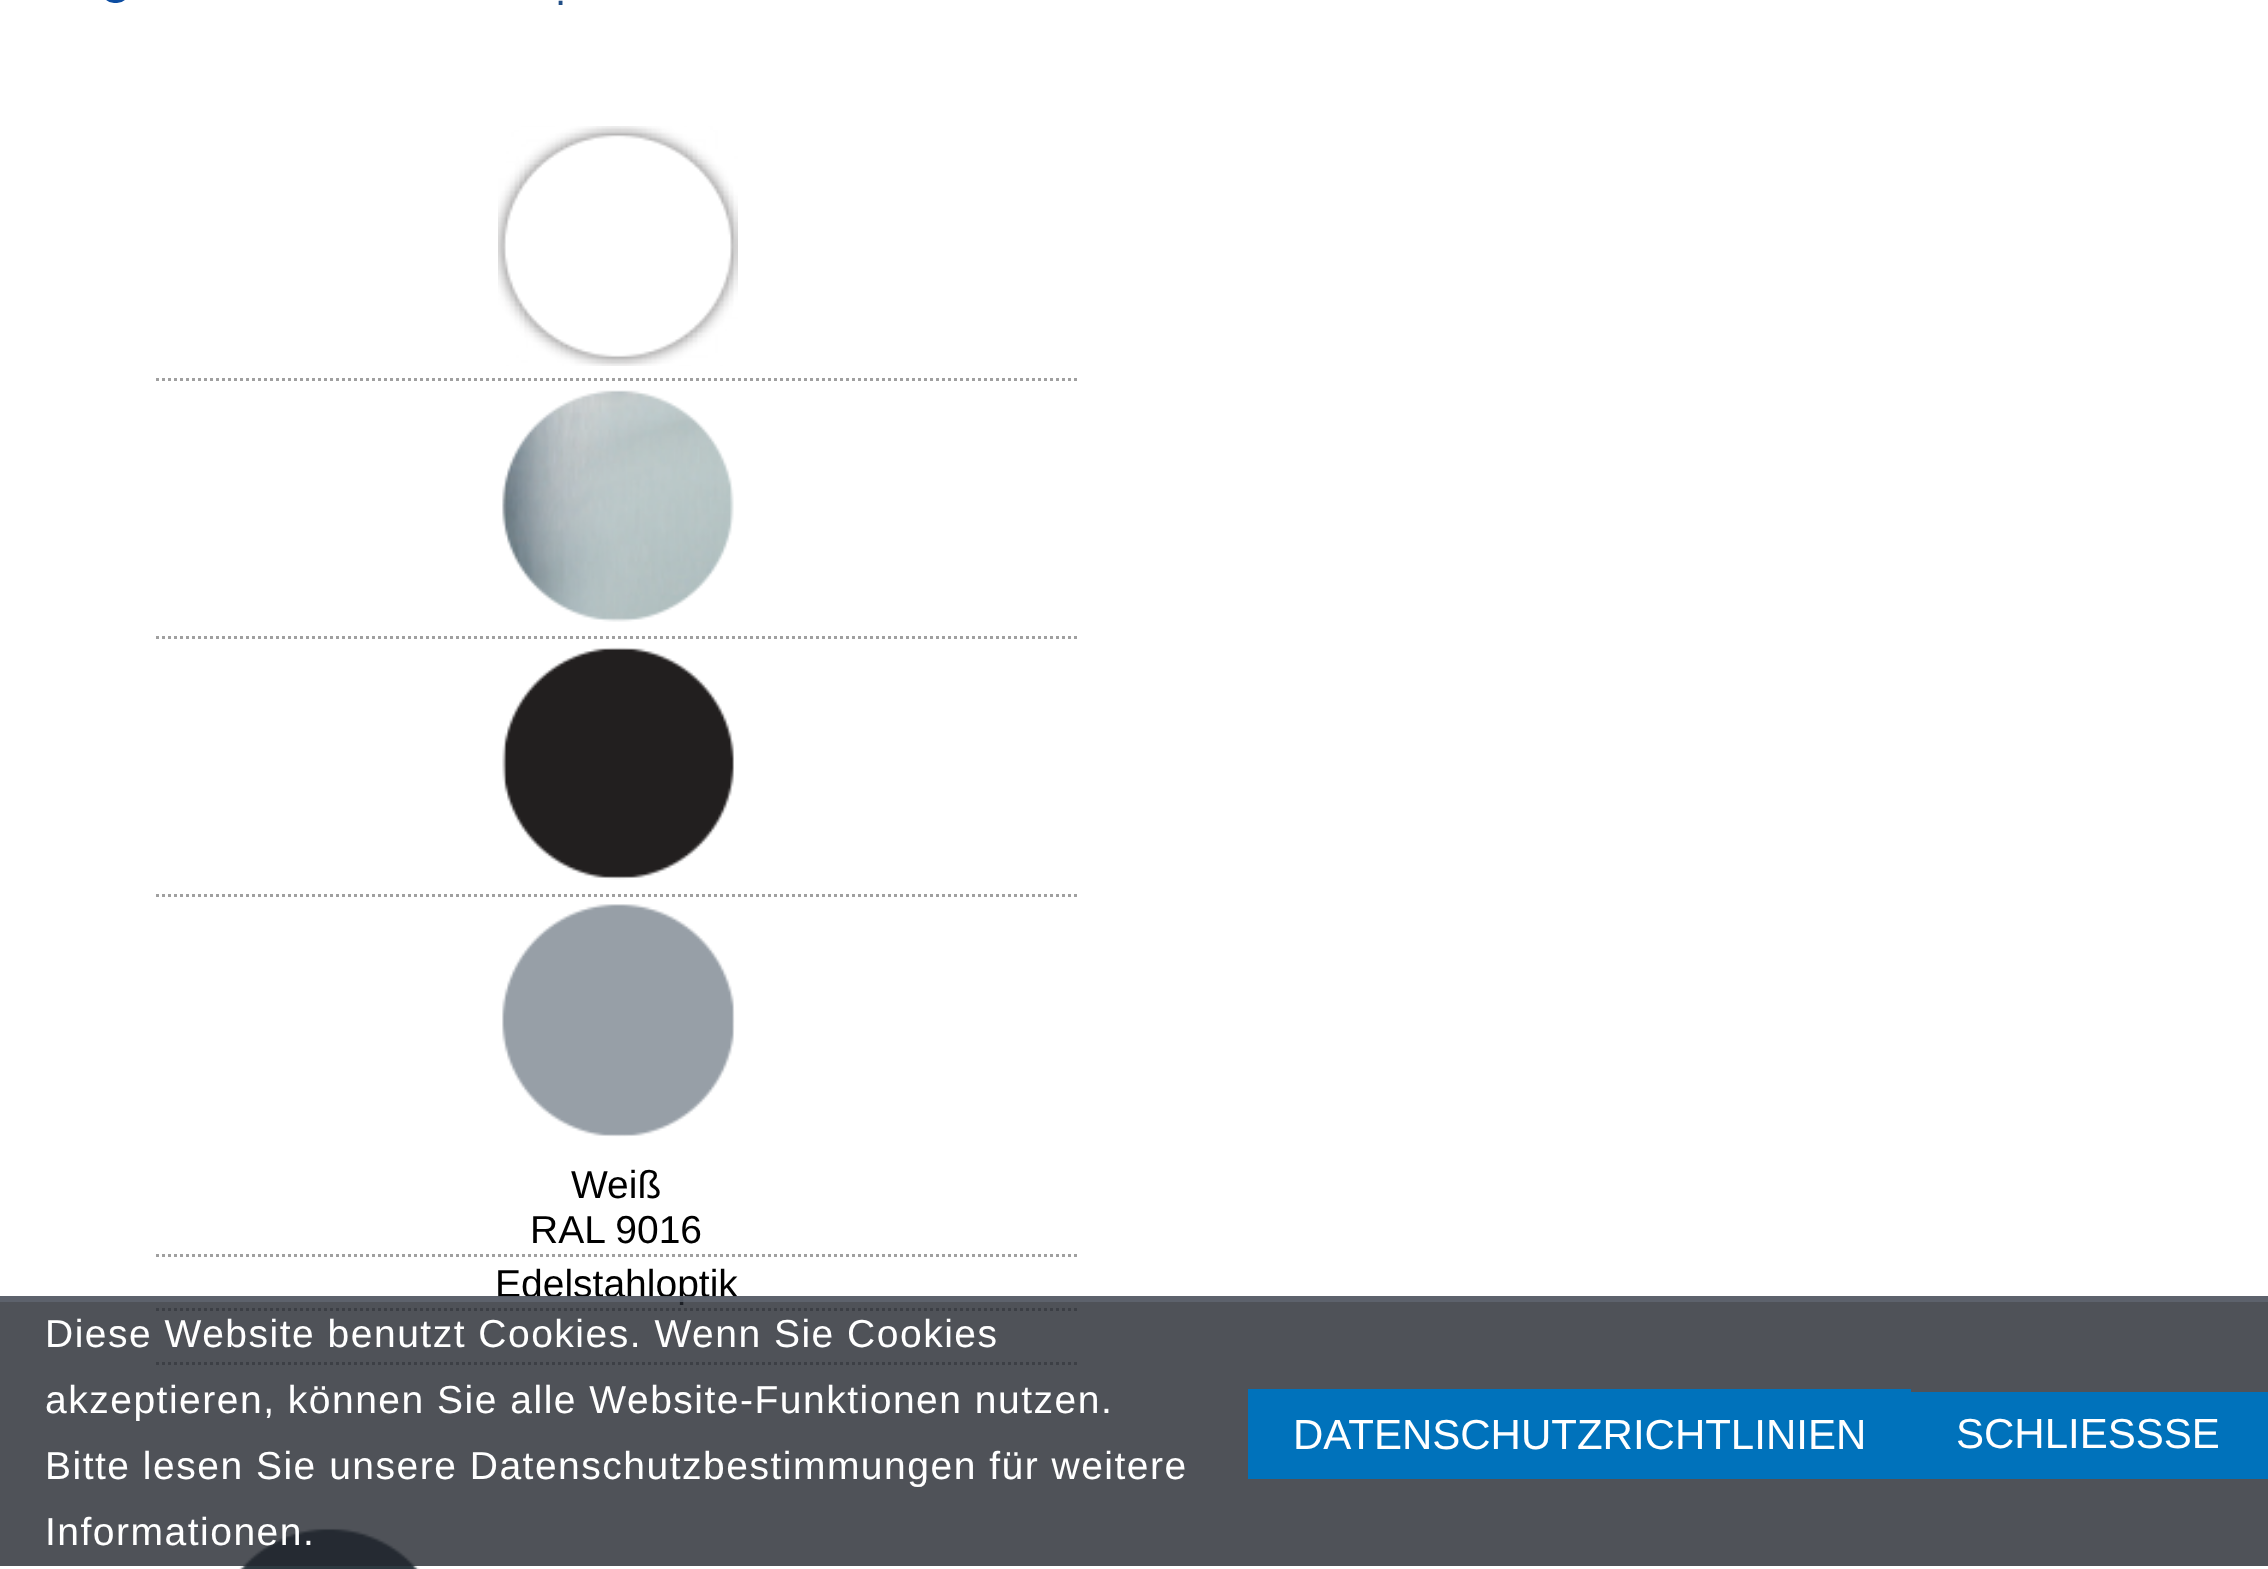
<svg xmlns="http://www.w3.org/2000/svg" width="2268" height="1569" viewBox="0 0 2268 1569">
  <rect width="100%" height="100%" fill="rgb(255,255,255)"/>
  <rect x="106.5" y="-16.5" width="18" height="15" rx="7.5" fill="none" stroke="rgb(12,77,162)" stroke-width="9"/>
  <text x="555" y="5" font-family="Liberation Sans" font-size="40" fill="rgb(33,78,134)">.</text>
  <path d="M156 379.5H1077" fill="none" stroke="rgb(160,160,160)" stroke-width="3" stroke-dasharray="3 3"/>
  <image x="498" y="126" width="240" height="240" href="pic1.png"/>
  <path d="M156 637.5H1077" fill="none" stroke="rgb(160,160,160)" stroke-width="3" stroke-dasharray="3 3"/>
  <image x="502" y="390" width="232" height="232" href="pic2.png"/>
  <path d="M156 895.5H1077" fill="none" stroke="rgb(160,160,160)" stroke-width="3" stroke-dasharray="3 3"/>
  <image x="502" y="647" width="232" height="233" href="pic3.png"/>
  <image x="502" y="904" width="233" height="233" href="pic4.png"/>
  <path d="M156 1255.5H1077" fill="none" stroke="rgb(160,160,160)" stroke-width="3" stroke-dasharray="3 3"/>
  <g font-family="Liberation Sans" font-size="39" fill="rgb(0,0,0)">
    <text x="571" y="1198">Weiß</text>
    <text x="530" y="1243">RAL 9016</text>
  </g>
  <path d="M156 1309.5H1077" fill="none" stroke="rgb(160,160,160)" stroke-width="3" stroke-dasharray="3 3"/>
  <text x="495" y="1297" font-family="Liberation Sans" font-size="39" fill="rgb(0,0,0)">Edelstahloptik</text>
  <path d="M156 1363.5H1077" fill="none" stroke="rgb(160,160,160)" stroke-width="3" stroke-dasharray="3 3"/>
  <image x="239" y="1528" width="181" height="41" href="pic5.png"/>
  <rect x="0" y="1296" width="2268" height="270" fill="rgba(35,39,46,0.8)"/>
  <rect x="0" y="1296" width="2268" height="6" fill="rgba(96,103,114,0.8)"/>
  <g font-family="Liberation Sans" font-size="39" letter-spacing="1.5" fill="rgb(255,255,255)">
    <text>
      <tspan x="45" y="1347">Diese Website benutzt Cookies. Wenn Sie Cookies</tspan>
      <tspan x="45" y="1413">akzeptieren, können Sie alle Website-Funktionen nutzen.</tspan>
      <tspan x="45" y="1479">Bitte lesen Sie unsere Datenschutzbestimmungen für weitere</tspan>
      <tspan x="45" y="1545">Informationen.</tspan>
    </text>
  </g>
  <rect x="1248" y="1389" width="663" height="90" fill="rgb(0,114,187)"/>
  <text x="1293" y="1449" font-family="Liberation Sans" font-size="42" fill="rgb(255,255,255)">DATENSCHUTZRICHTLINIEN</text>
  <rect x="1911" y="1392" width="357" height="87" fill="rgb(0,114,187)"/>
  <text x="1956" y="1448" font-family="Liberation Sans" font-size="42" fill="rgb(255,255,255)">SCHLIESSSE</text>
</svg>
